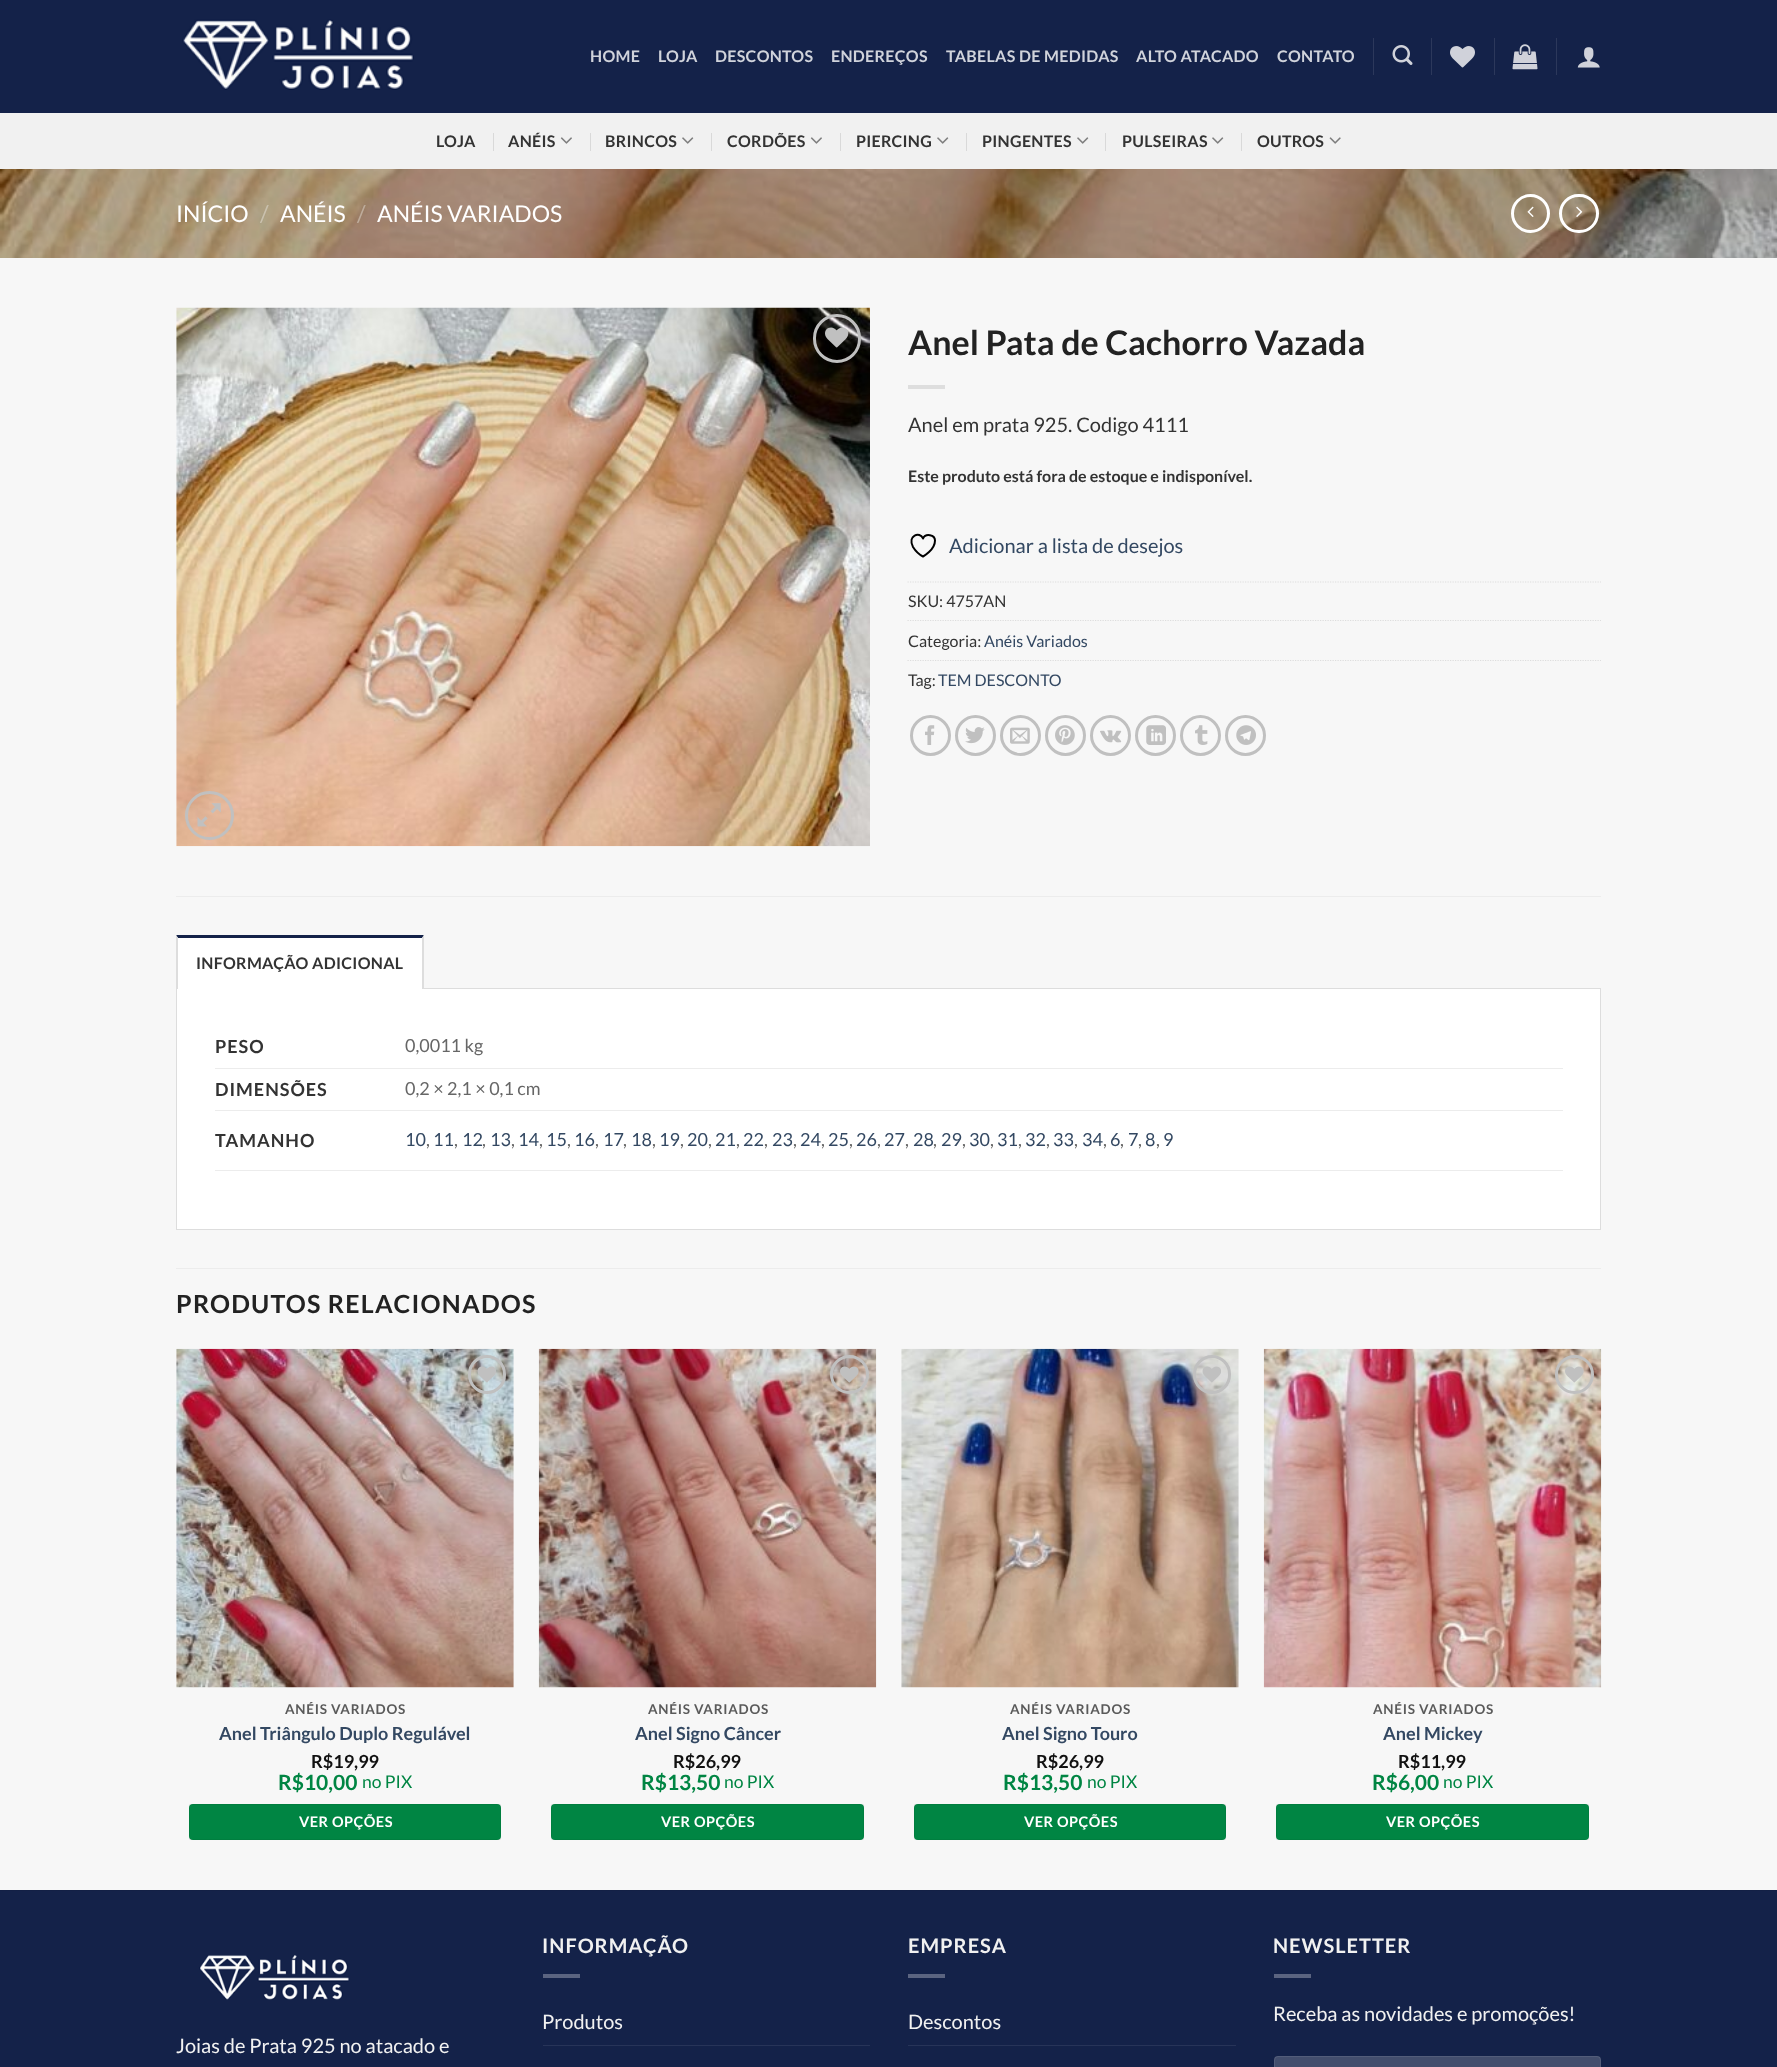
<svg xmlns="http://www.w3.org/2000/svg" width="1777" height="2067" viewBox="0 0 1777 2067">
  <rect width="100%" height="100%" fill="rgb(247,247,247)"/>
  <rect x="0" y="0" width="1777" height="113" fill="rgb(20,34,73)"/>
  <image x="182" y="19" width="232" height="71" href="pic1.png"/>
  <g font-family="Lato" font-size="16" font-weight="bold" letter-spacing="0.3" fill="rgb(208,211,219)">
    <text x="590" y="62">HOME</text>
    <text x="658" y="62">LOJA</text>
    <text x="715" y="62">DESCONTOS</text>
    <text x="831" y="62">ENDEREÇOS</text>
    <text x="946" y="62">TABELAS DE MEDIDAS</text>
    <text x="1136" y="62">ALTO ATACADO</text>
    <text x="1277" y="62">CONTATO</text>
  </g>
  <rect x="1373" y="38" width="1" height="37" fill="rgb(44,56,91)"/>
  <image x="1392" y="45" width="21" height="20" href="pic2.png"/>
  <rect x="1431" y="38" width="1" height="37" fill="rgb(44,56,91)"/>
  <image x="1450" y="46" width="25" height="22" href="pic3.png"/>
  <rect x="1494" y="38" width="1" height="37" fill="rgb(44,56,91)"/>
  <image x="1512" y="44" width="26" height="26" href="pic4.png"/>
  <rect x="1556" y="38" width="1" height="37" fill="rgb(44,56,91)"/>
  <image x="1577" y="47" width="23" height="21" href="pic5.png"/>
  <rect x="0" y="113" width="1777" height="56" fill="rgb(241,241,241)"/>
  <text x="436" y="147" font-family="Lato" font-size="16" font-weight="bold" letter-spacing="0.3" fill="rgb(51,51,51)">LOJA</text>
  <rect x="493" y="133" width="1" height="18" fill="rgb(217,217,217)"/>
  <text x="508" y="147" font-family="Lato" font-size="16" font-weight="bold" letter-spacing="0.3" fill="rgb(51,51,51)">ANÉIS</text>
  <image x="560" y="137" width="12" height="7" href="pic6.png"/>
  <rect x="590" y="133" width="1" height="18" fill="rgb(217,217,217)"/>
  <text x="605" y="147" font-family="Lato" font-size="16" font-weight="bold" letter-spacing="0.3" fill="rgb(51,51,51)">BRINCOS</text>
  <image x="682" y="137" width="12" height="7" href="pic7.png"/>
  <rect x="711" y="133" width="1" height="18" fill="rgb(217,217,217)"/>
  <text x="727" y="147" font-family="Lato" font-size="16" font-weight="bold" letter-spacing="0.3" fill="rgb(51,51,51)">CORDÕES</text>
  <image x="810" y="137" width="12" height="7" href="pic6.png"/>
  <rect x="840" y="133" width="1" height="18" fill="rgb(217,217,217)"/>
  <text x="856" y="147" font-family="Lato" font-size="16" font-weight="bold" letter-spacing="0.3" fill="rgb(51,51,51)">PIERCING</text>
  <image x="937" y="137" width="12" height="7" href="pic7.png"/>
  <rect x="966" y="133" width="1" height="18" fill="rgb(217,217,217)"/>
  <text x="982" y="147" font-family="Lato" font-size="16" font-weight="bold" letter-spacing="0.3" fill="rgb(51,51,51)">PINGENTES</text>
  <image x="1077" y="137" width="12" height="7" href="pic7.png"/>
  <rect x="1105" y="133" width="1" height="18" fill="rgb(217,217,217)"/>
  <text x="1122" y="147" font-family="Lato" font-size="16" font-weight="bold" letter-spacing="0.3" fill="rgb(51,51,51)">PULSEIRAS</text>
  <image x="1212" y="137" width="12" height="7" href="pic7.png"/>
  <rect x="1241" y="133" width="1" height="18" fill="rgb(217,217,217)"/>
  <text x="1257" y="147" font-family="Lato" font-size="16" font-weight="bold" letter-spacing="0.3" fill="rgb(51,51,51)">OUTROS</text>
  <image x="1329" y="137" width="12" height="7" href="pic8.png"/>
  <image x="0" y="169" width="1777" height="89" href="pic9.png"/>
  <text x="176" y="222" font-family="Lato" font-size="23" fill="rgb(255,255,255)">INÍCIO</text>
  <text x="260" y="222" font-family="Lato" font-size="23" fill="rgb(202,193,174)">/</text>
  <text x="280" y="222" font-family="Lato" font-size="23" fill="rgb(255,255,255)">ANÉIS</text>
  <text x="357" y="222" font-family="Lato" font-size="23" fill="rgb(190,172,156)">/</text>
  <text x="377" y="222" font-family="Lato" font-size="23" fill="rgb(255,255,255)">ANÉIS VARIADOS</text>
  <circle cx="1530.5" cy="213.5" r="18" fill="none" stroke="rgb(255,255,255)" stroke-width="3"/>
  <image x="1527" y="206" width="7" height="11" href="pic10.png"/>
  <rect x="1560.5" y="195.5" width="37" height="36" rx="18" fill="none" stroke="rgb(255,255,255)" stroke-width="3"/>
  <image x="1576" y="206" width="7" height="11" href="pic11.png"/>
  <image x="176" y="307" width="694" height="540" href="pic12.png"/>
  <rect x="814.5" y="315.5" width="45" height="46" rx="22.5" fill="none" stroke="rgb(192,192,192)" stroke-width="3"/>
  <image x="825" y="327" width="24" height="21" href="pic13.png"/>
  <circle cx="209.5" cy="815.5" r="23" fill="none" stroke="rgb(192,192,192)" stroke-width="3"/>
  <image x="197" y="803" width="24" height="24" href="pic14.png"/>
  <text x="908" y="355" font-family="Lato" font-size="34" font-weight="bold" fill="rgb(34,34,34)">Anel Pata de Cachorro Vazada</text>
  <rect x="908" y="385" width="37" height="4" fill="rgb(222,222,222)"/>
  <text x="908" y="432" font-family="Lato" font-size="20" fill="rgb(51,51,51)">Anel em prata 925. Codigo 4111</text>
  <text x="908" y="482" font-family="Lato" font-size="16" font-weight="bold" fill="rgb(51,51,51)">Este produto está fora de estoque e indisponível.</text>
  <text x="949" y="553" font-family="Lato" font-size="20" fill="rgb(51,72,98)">Adicionar a lista de desejos</text>
  <path d="M935 540.5C935 534.5 925.5 533 923 538.5C920 531 907 535.5 913 547C915.5 551 919 554.5 923 556.5C923 556.5 935 550 935 540.5Z" fill="none" stroke="rgb(0,0,0)" stroke-width="2" stroke-linecap="round" stroke-linejoin="round"/>
  <path d="M907.5 582H1601" fill="none" stroke="rgb(221,221,221)" stroke-width="1.2" stroke-dasharray="1.25 1.25"/>
  <text x="908" y="607" font-family="Lato" font-size="16" fill="rgb(51,51,51)">SKU: 4757AN</text>
  <path d="M907.5 620.5H1601" fill="none" stroke="rgb(221,221,221)" stroke-width="1.2" stroke-dasharray="1.25 1.25"/>
  <text x="908" y="647" font-family="Lato" font-size="16" fill="rgb(51,51,51)">Categoria:</text>
  <text x="984" y="647" font-family="Lato" font-size="16" fill="rgb(51,72,98)">Anéis Variados</text>
  <path d="M907.5 660.5H1601" fill="none" stroke="rgb(221,221,221)" stroke-width="1.2" stroke-dasharray="1.25 1.25"/>
  <text x="908" y="686" font-family="Lato" font-size="16" fill="rgb(51,51,51)">Tag:</text>
  <text x="938" y="686" font-family="Lato" font-size="16" fill="rgb(51,72,98)">TEM DESCONTO</text>
  <circle cx="930.5" cy="735.5" r="19" fill="none" stroke="rgb(192,192,192)" stroke-width="3"/>
  <image x="925" y="725" width="10" height="20" href="pic15.png"/>
  <circle cx="975.5" cy="735.5" r="19" fill="none" stroke="rgb(192,192,192)" stroke-width="3"/>
  <image x="965" y="727" width="20" height="17" href="pic16.png"/>
  <circle cx="1020.5" cy="735.5" r="19" fill="none" stroke="rgb(192,192,192)" stroke-width="3"/>
  <image x="1010" y="727" width="20" height="17" href="pic17.png"/>
  <circle cx="1065.5" cy="735.5" r="19" fill="none" stroke="rgb(192,192,192)" stroke-width="3"/>
  <image x="1055" y="725" width="20" height="20" href="pic18.png"/>
  <circle cx="1110.5" cy="735.5" r="19" fill="none" stroke="rgb(192,192,192)" stroke-width="3"/>
  <image x="1100" y="730" width="22" height="13" href="pic19.png"/>
  <circle cx="1155.5" cy="735.5" r="19" fill="none" stroke="rgb(192,192,192)" stroke-width="3"/>
  <image x="1146" y="725" width="20" height="20" href="pic20.png"/>
  <circle cx="1200.5" cy="735.5" r="19" fill="none" stroke="rgb(192,192,192)" stroke-width="3"/>
  <image x="1195" y="725" width="13" height="20" href="pic21.png"/>
  <circle cx="1245.5" cy="735.5" r="19" fill="none" stroke="rgb(192,192,192)" stroke-width="3"/>
  <image x="1236" y="725" width="20" height="20" href="pic22.png"/>
  <rect x="176" y="896" width="1425" height="1" fill="rgb(236,236,236)"/>
  <rect x="176.5" y="988.5" width="1424" height="241" fill="rgb(255,255,255)" stroke="rgb(221,221,221)"/>
  <rect x="176" y="935" width="248" height="54" fill="rgb(255,255,255)"/>
  <path d="M176 935H424L422 938H178Z" fill="rgb(20,34,73)"/>
  <path d="M424 935V989H422V938Z" fill="rgb(221,221,221)"/>
  <path d="M176 989V935L178 938V989Z" fill="rgb(221,221,221)"/>
  <text x="196" y="969" font-family="Lato" font-size="16" font-weight="bold" letter-spacing="0.3" fill="rgb(51,51,51)">INFORMAÇÃO ADICIONAL</text>
  <rect x="215" y="1068" width="1348" height="1" fill="rgb(236,236,236)"/>
  <text x="215" y="1053" font-family="Lato" font-size="18" font-weight="bold" letter-spacing="1" fill="rgb(51,51,51)">PESO</text>
  <text x="405" y="1052" font-family="Lato" font-size="18" fill="rgb(102,102,102)">0,0011 kg</text>
  <rect x="215" y="1110" width="1348" height="1" fill="rgb(236,236,236)"/>
  <text x="215" y="1096" font-family="Lato" font-size="18" font-weight="bold" letter-spacing="1" fill="rgb(51,51,51)">DIMENSÕES</text>
  <text x="405" y="1095" font-family="Lato" font-size="18" fill="rgb(102,102,102)">0,2 × 2,1 × 0,1 cm</text>
  <rect x="215" y="1170" width="1348" height="1" fill="rgb(236,236,236)"/>
  <text x="215" y="1147" font-family="Lato" font-size="18" font-weight="bold" letter-spacing="1" fill="rgb(51,51,51)">TAMANHO</text>
  <text x="405" y="1146" font-family="Lato" font-size="18" fill="rgb(51,72,98)">10</text>
  <text x="426" y="1146" font-family="Lato" font-size="18" fill="rgb(102,102,102)">,</text>
  <text x="433" y="1146" font-family="Lato" font-size="18" fill="rgb(51,72,98)">11</text>
  <text x="454" y="1146" font-family="Lato" font-size="18" fill="rgb(102,102,102)">,</text>
  <text x="462" y="1146" font-family="Lato" font-size="18" fill="rgb(51,72,98)">12</text>
  <text x="482" y="1146" font-family="Lato" font-size="18" fill="rgb(102,102,102)">,</text>
  <text x="490" y="1146" font-family="Lato" font-size="18" fill="rgb(51,72,98)">13</text>
  <text x="511" y="1146" font-family="Lato" font-size="18" fill="rgb(102,102,102)">,</text>
  <text x="518" y="1146" font-family="Lato" font-size="18" fill="rgb(51,72,98)">14</text>
  <text x="539" y="1146" font-family="Lato" font-size="18" fill="rgb(102,102,102)">,</text>
  <text x="546" y="1146" font-family="Lato" font-size="18" fill="rgb(51,72,98)">15</text>
  <text x="567" y="1146" font-family="Lato" font-size="18" fill="rgb(102,102,102)">,</text>
  <text x="574" y="1146" font-family="Lato" font-size="18" fill="rgb(51,72,98)">16</text>
  <text x="595" y="1146" font-family="Lato" font-size="18" fill="rgb(102,102,102)">,</text>
  <text x="603" y="1146" font-family="Lato" font-size="18" fill="rgb(51,72,98)">17</text>
  <text x="623" y="1146" font-family="Lato" font-size="18" fill="rgb(102,102,102)">,</text>
  <text x="631" y="1146" font-family="Lato" font-size="18" fill="rgb(51,72,98)">18</text>
  <text x="652" y="1146" font-family="Lato" font-size="18" fill="rgb(102,102,102)">,</text>
  <text x="659" y="1146" font-family="Lato" font-size="18" fill="rgb(51,72,98)">19</text>
  <text x="680" y="1146" font-family="Lato" font-size="18" fill="rgb(102,102,102)">,</text>
  <text x="687" y="1146" font-family="Lato" font-size="18" fill="rgb(51,72,98)">20</text>
  <text x="708" y="1146" font-family="Lato" font-size="18" fill="rgb(102,102,102)">,</text>
  <text x="715" y="1146" font-family="Lato" font-size="18" fill="rgb(51,72,98)">21</text>
  <text x="736" y="1146" font-family="Lato" font-size="18" fill="rgb(102,102,102)">,</text>
  <text x="743" y="1146" font-family="Lato" font-size="18" fill="rgb(51,72,98)">22</text>
  <text x="764" y="1146" font-family="Lato" font-size="18" fill="rgb(102,102,102)">,</text>
  <text x="772" y="1146" font-family="Lato" font-size="18" fill="rgb(51,72,98)">23</text>
  <text x="793" y="1146" font-family="Lato" font-size="18" fill="rgb(102,102,102)">,</text>
  <text x="800" y="1146" font-family="Lato" font-size="18" fill="rgb(51,72,98)">24</text>
  <text x="821" y="1146" font-family="Lato" font-size="18" fill="rgb(102,102,102)">,</text>
  <text x="828" y="1146" font-family="Lato" font-size="18" fill="rgb(51,72,98)">25</text>
  <text x="849" y="1146" font-family="Lato" font-size="18" fill="rgb(102,102,102)">,</text>
  <text x="856" y="1146" font-family="Lato" font-size="18" fill="rgb(51,72,98)">26</text>
  <text x="877" y="1146" font-family="Lato" font-size="18" fill="rgb(102,102,102)">,</text>
  <text x="884" y="1146" font-family="Lato" font-size="18" fill="rgb(51,72,98)">27</text>
  <text x="905" y="1146" font-family="Lato" font-size="18" fill="rgb(102,102,102)">,</text>
  <text x="913" y="1146" font-family="Lato" font-size="18" fill="rgb(51,72,98)">28</text>
  <text x="933" y="1146" font-family="Lato" font-size="18" fill="rgb(102,102,102)">,</text>
  <text x="941" y="1146" font-family="Lato" font-size="18" fill="rgb(51,72,98)">29</text>
  <text x="962" y="1146" font-family="Lato" font-size="18" fill="rgb(102,102,102)">,</text>
  <text x="969" y="1146" font-family="Lato" font-size="18" fill="rgb(51,72,98)">30</text>
  <text x="990" y="1146" font-family="Lato" font-size="18" fill="rgb(102,102,102)">,</text>
  <text x="997" y="1146" font-family="Lato" font-size="18" fill="rgb(51,72,98)">31</text>
  <text x="1018" y="1146" font-family="Lato" font-size="18" fill="rgb(102,102,102)">,</text>
  <text x="1025" y="1146" font-family="Lato" font-size="18" fill="rgb(51,72,98)">32</text>
  <text x="1046" y="1146" font-family="Lato" font-size="18" fill="rgb(102,102,102)">,</text>
  <text x="1053" y="1146" font-family="Lato" font-size="18" fill="rgb(51,72,98)">33</text>
  <text x="1074" y="1146" font-family="Lato" font-size="18" fill="rgb(102,102,102)">,</text>
  <text x="1082" y="1146" font-family="Lato" font-size="18" fill="rgb(51,72,98)">34</text>
  <text x="1103" y="1146" font-family="Lato" font-size="18" fill="rgb(102,102,102)">,</text>
  <text x="1110" y="1146" font-family="Lato" font-size="18" fill="rgb(51,72,98)">6</text>
  <text x="1120" y="1146" font-family="Lato" font-size="18" fill="rgb(102,102,102)">,</text>
  <text x="1128" y="1146" font-family="Lato" font-size="18" fill="rgb(51,72,98)">7</text>
  <text x="1138" y="1146" font-family="Lato" font-size="18" fill="rgb(102,102,102)">,</text>
  <text x="1145" y="1146" font-family="Lato" font-size="18" fill="rgb(51,72,98)">8</text>
  <text x="1156" y="1146" font-family="Lato" font-size="18" fill="rgb(102,102,102)">,</text>
  <text x="1163" y="1146" font-family="Lato" font-size="18" fill="rgb(51,72,98)">9</text>
  <rect x="176" y="1268" width="1425" height="1" fill="rgb(236,236,236)"/>
  <text x="176" y="1313" font-family="Lato" font-size="25" font-weight="bold" letter-spacing="1.25" fill="rgb(34,34,34)">PRODUTOS RELACIONADOS</text>
  <image x="176" y="1348" width="338" height="340" href="pic23.png"/>
  <rect x="469.5" y="1356.5" width="35" height="36" rx="17.5" fill="none" stroke="rgb(192,192,192)" stroke-width="3"/>
  <image x="477" y="1366" width="19" height="17" href="pic24.png"/>
  <text x="285" y="1714" font-family="Lato" font-size="13.5" font-weight="bold" letter-spacing="0.75" fill="rgb(90,90,90)">ANÉIS VARIADOS</text>
  <text x="219" y="1740" font-family="Lato" font-size="18" font-weight="bold" fill="rgb(51,72,98)">Anel Triângulo Duplo Regulável</text>
  <text x="311" y="1768" font-family="Lato" font-size="18" font-weight="bold" fill="rgb(17,17,17)">R$19,99</text>
  <text x="278" y="1790" font-family="Lato" font-size="21" font-weight="bold" fill="rgb(0,133,67)">R$10,00</text>
  <text x="362" y="1788" font-family="Lato" font-size="17.5" fill="rgb(0,133,67)">no PIX</text>
  <rect x="189" y="1804" width="312" height="36" rx="4" fill="rgb(0,133,67)"/>
  <rect x="189.5" y="1804.5" width="311" height="35" fill="none" stroke="rgba(0,0,0,0.05)"/>
  <text x="299" y="1827" font-family="Lato" font-size="14.5" font-weight="bold" letter-spacing="0.5" fill="rgb(255,255,255)">VER OPÇÕES</text>
  <image x="538" y="1348" width="339" height="340" href="pic25.png"/>
  <circle cx="849.5" cy="1374.5" r="18" fill="none" stroke="rgb(192,192,192)" stroke-width="3"/>
  <image x="840" y="1366" width="19" height="17" href="pic26.png"/>
  <text x="648" y="1714" font-family="Lato" font-size="13.5" font-weight="bold" letter-spacing="0.75" fill="rgb(90,90,90)">ANÉIS VARIADOS</text>
  <text x="635" y="1740" font-family="Lato" font-size="18" font-weight="bold" fill="rgb(51,72,98)">Anel Signo Câncer</text>
  <text x="673" y="1768" font-family="Lato" font-size="18" font-weight="bold" fill="rgb(17,17,17)">R$26,99</text>
  <text x="641" y="1790" font-family="Lato" font-size="21" font-weight="bold" fill="rgb(0,133,67)">R$13,50</text>
  <text x="724" y="1788" font-family="Lato" font-size="17.5" fill="rgb(0,133,67)">no PIX</text>
  <rect x="551" y="1804" width="313" height="36" rx="4" fill="rgb(0,133,67)"/>
  <rect x="551.5" y="1804.5" width="312" height="35" fill="none" stroke="rgba(0,0,0,0.05)"/>
  <text x="661" y="1827" font-family="Lato" font-size="14.5" font-weight="bold" letter-spacing="0.5" fill="rgb(255,255,255)">VER OPÇÕES</text>
  <image x="901" y="1348" width="338" height="340" href="pic27.png"/>
  <rect x="1194.5" y="1356.5" width="35" height="36" rx="17.5" fill="none" stroke="rgb(192,192,192)" stroke-width="3"/>
  <image x="1202" y="1366" width="19" height="17" href="pic28.png"/>
  <text x="1010" y="1714" font-family="Lato" font-size="13.5" font-weight="bold" letter-spacing="0.75" fill="rgb(90,90,90)">ANÉIS VARIADOS</text>
  <text x="1002" y="1740" font-family="Lato" font-size="18" font-weight="bold" fill="rgb(51,72,98)">Anel Signo Touro</text>
  <text x="1036" y="1768" font-family="Lato" font-size="18" font-weight="bold" fill="rgb(17,17,17)">R$26,99</text>
  <text x="1003" y="1790" font-family="Lato" font-size="21" font-weight="bold" fill="rgb(0,133,67)">R$13,50</text>
  <text x="1087" y="1788" font-family="Lato" font-size="17.5" fill="rgb(0,133,67)">no PIX</text>
  <rect x="914" y="1804" width="312" height="36" rx="4" fill="rgb(0,133,67)"/>
  <rect x="914.5" y="1804.5" width="311" height="35" fill="none" stroke="rgba(0,0,0,0.05)"/>
  <text x="1024" y="1827" font-family="Lato" font-size="14.5" font-weight="bold" letter-spacing="0.5" fill="rgb(255,255,255)">VER OPÇÕES</text>
  <image x="1263" y="1348" width="339" height="340" href="pic29.png"/>
  <circle cx="1574.5" cy="1374.5" r="18" fill="none" stroke="rgb(192,192,192)" stroke-width="3"/>
  <image x="1565" y="1366" width="19" height="17" href="pic30.png"/>
  <text x="1373" y="1714" font-family="Lato" font-size="13.5" font-weight="bold" letter-spacing="0.75" fill="rgb(90,90,90)">ANÉIS VARIADOS</text>
  <text x="1383" y="1740" font-family="Lato" font-size="18" font-weight="bold" fill="rgb(51,72,98)">Anel Mickey</text>
  <text x="1398" y="1768" font-family="Lato" font-size="18" font-weight="bold" fill="rgb(17,17,17)">R$11,99</text>
  <text x="1372" y="1790" font-family="Lato" font-size="21" font-weight="bold" fill="rgb(0,133,67)">R$6,00</text>
  <text x="1443" y="1788" font-family="Lato" font-size="17.5" fill="rgb(0,133,67)">no PIX</text>
  <rect x="1276" y="1804" width="313" height="36" rx="4" fill="rgb(0,133,67)"/>
  <rect x="1276.5" y="1804.5" width="312" height="35" fill="none" stroke="rgba(0,0,0,0.05)"/>
  <text x="1386" y="1827" font-family="Lato" font-size="14.5" font-weight="bold" letter-spacing="0.5" fill="rgb(255,255,255)">VER OPÇÕES</text>
  <rect x="0" y="1891" width="1777" height="176" fill="rgb(20,34,73)"/>
  <rect x="0" y="1890" width="1777" height="1" fill="rgb(19,32,69)"/>
  <text x="542" y="1953" font-family="Lato" font-size="20" font-weight="bold" letter-spacing="1" fill="rgb(241,241,241)">INFORMAÇÃO</text>
  <rect x="543" y="1974" width="37" height="4" fill="rgb(91,100,128)"/>
  <text x="542" y="2029" font-family="Lato" font-size="20" fill="rgb(241,241,241)">Produtos</text>
  <rect x="543" y="2045" width="327" height="1" fill="rgb(39,52,88)"/>
  <text x="908" y="1953" font-family="Lato" font-size="20" font-weight="bold" letter-spacing="1" fill="rgb(241,241,241)">EMPRESA</text>
  <rect x="908" y="1974" width="37" height="4" fill="rgb(91,100,128)"/>
  <text x="908" y="2029" font-family="Lato" font-size="20" fill="rgb(241,241,241)">Descontos</text>
  <rect x="908" y="2045" width="328" height="1" fill="rgb(39,52,88)"/>
  <text x="1273" y="1953" font-family="Lato" font-size="20" font-weight="bold" letter-spacing="1" fill="rgb(241,241,241)">NEWSLETTER</text>
  <rect x="1274" y="1974" width="37" height="4" fill="rgb(91,100,128)"/>
  <text x="1273" y="2021" font-family="Lato" font-size="20" fill="rgb(241,241,241)">Receba as novidades e promoções!</text>
  <rect x="1274" y="2056" width="327" height="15" rx="4" fill="rgb(67,78,109)"/>
  <rect x="1274.5" y="2056.5" width="326" height="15" rx="3.5" fill="none" stroke="rgba(255,255,255,0.09)"/>
  <image x="199" y="1955" width="151" height="45" href="pic31.png"/>
  <text x="176" y="2053" font-family="Lato" font-size="20" fill="rgb(241,241,241)">Joias de Prata 925 no atacado e</text>
</svg>
